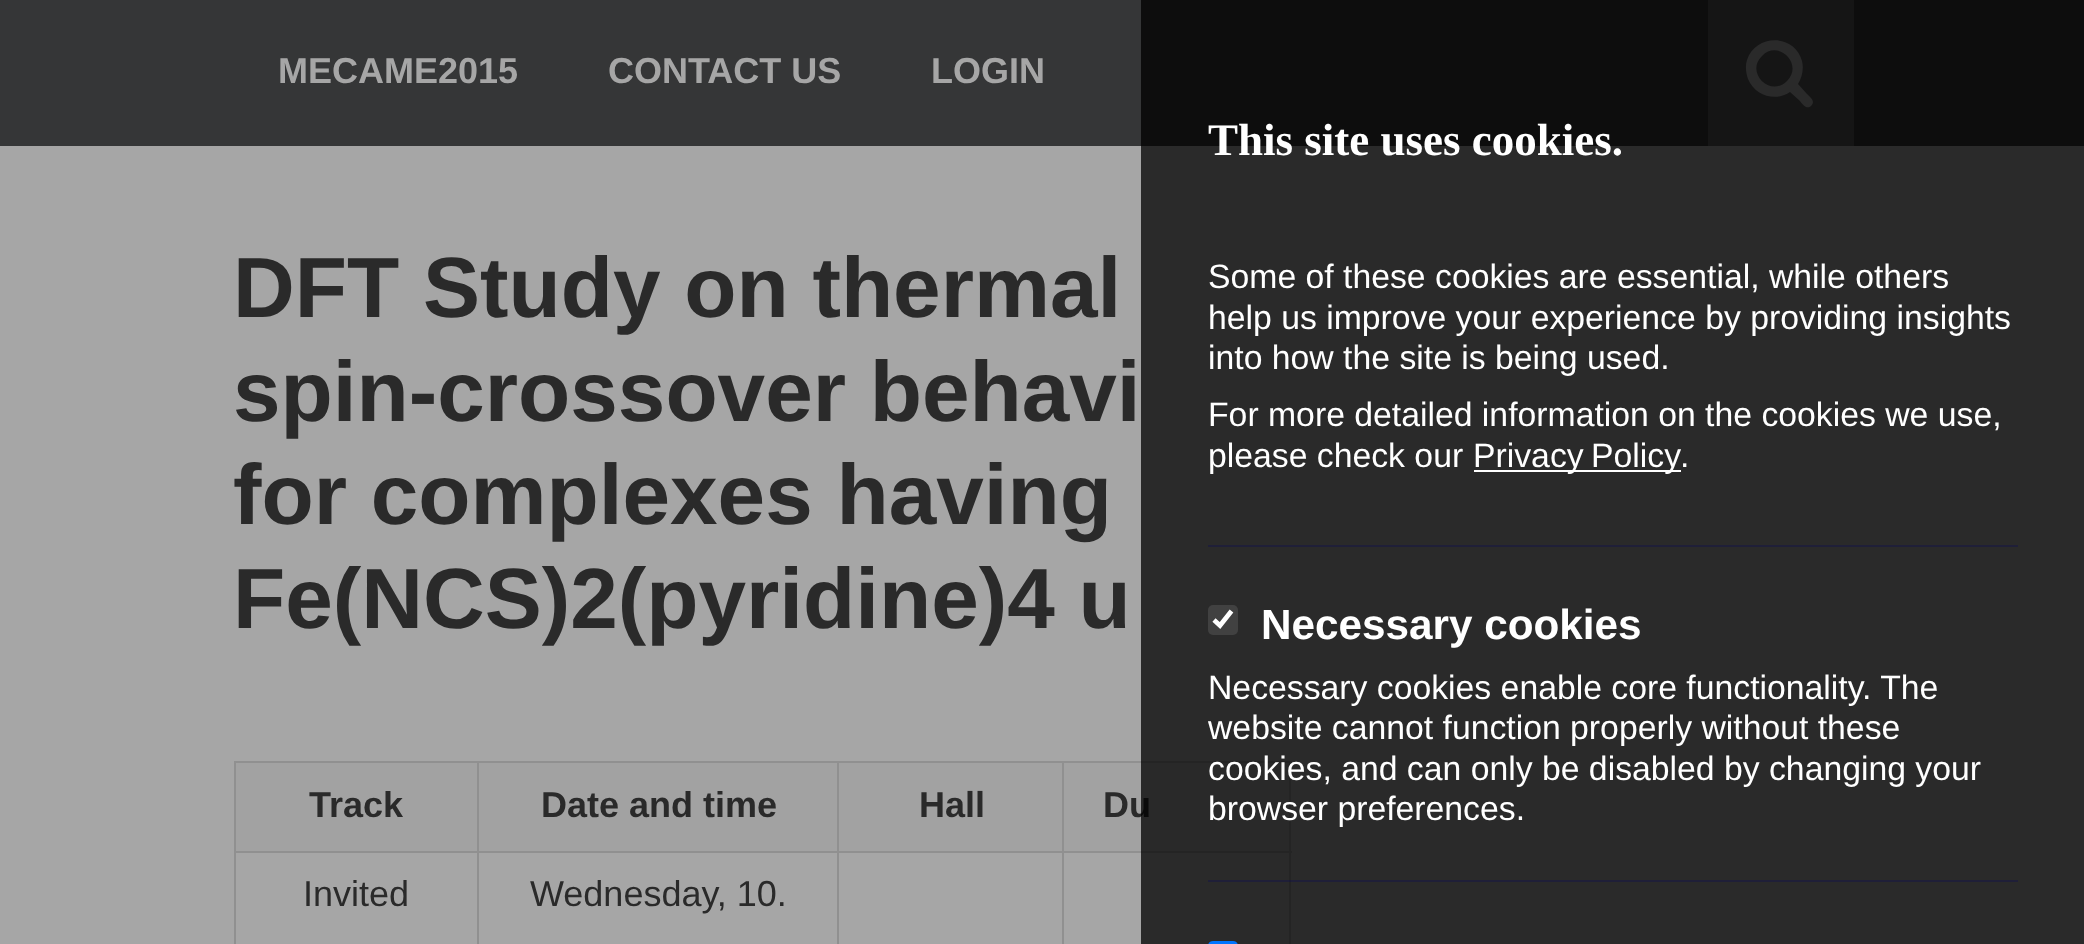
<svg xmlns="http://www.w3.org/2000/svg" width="2084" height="944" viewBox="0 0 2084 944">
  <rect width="100%" height="100%" fill="rgb(166,166,166)"/>
  <rect x="0" y="0" width="2084" height="146" fill="rgb(53,54,55)"/>
  <g font-family="Liberation Sans" font-size="36" font-weight="bold" fill="rgb(166,166,166)">
    <text x="278" y="83">MECAME2015</text>
    <text x="608" y="83">CONTACT US</text>
    <text x="931" y="83">LOGIN</text>
  </g>
  <rect x="1708" y="0" width="146" height="146" fill="rgb(83,84,86)"/>
  <path d="M1748 79C1746 73 1745 66 1747 60C1756 33 1795 34 1802 61C1804 69 1802 78 1798 84L1807 94C1810 97 1816 101 1811 106C1807 110 1802 104 1800 101L1790 92C1776 102 1755 96 1748 79ZM1762 56C1745 72 1770 98 1787 81C1804 64 1778 39 1762 56Z" fill="rgb(166,166,166)"/>
  <g font-family="Liberation Sans" font-size="85.5" font-weight="bold" fill="rgb(42,42,42)">
    <text>
      <tspan x="233" y="317">DFT Study on thermal</tspan>
      <tspan x="233" y="421">spin-crossover behavi</tspan>
      <tspan x="233" y="524">for complexes having</tspan>
      <tspan x="233" y="628">Fe(NCS)2(pyridine)4 u</tspan>
    </text>
  </g>
  <rect x="234" y="761" width="1058" height="2" fill="rgb(144,144,144)"/>
  <rect x="1289" y="761" width="2" height="183" fill="rgb(144,144,144)"/>
  <rect x="234" y="761" width="2" height="183" fill="rgb(144,144,144)"/>
  <rect x="236" y="763" width="241" height="88" fill="rgb(162,162,162)"/>
  <text x="309" y="817" font-family="Liberation Sans" font-size="36" font-weight="bold" fill="rgb(42,42,42)">Track</text>
  <rect x="479" y="763" width="358" height="88" fill="rgb(162,162,162)"/>
  <rect x="1062" y="851" width="230" height="2" fill="rgb(144,144,144)"/>
  <rect x="1062" y="851" width="2" height="93" fill="rgb(144,144,144)"/>
  <rect x="837" y="851" width="227" height="2" fill="rgb(144,144,144)"/>
  <rect x="837" y="851" width="2" height="93" fill="rgb(144,144,144)"/>
  <rect x="477" y="851" width="362" height="2" fill="rgb(144,144,144)"/>
  <rect x="477" y="851" width="2" height="93" fill="rgb(144,144,144)"/>
  <rect x="234" y="851" width="245" height="2" fill="rgb(144,144,144)"/>
  <rect x="477" y="761" width="2" height="92" fill="rgb(144,144,144)"/>
  <text x="541" y="817" font-family="Liberation Sans" font-size="36" font-weight="bold" fill="rgb(42,42,42)">Date and time</text>
  <rect x="839" y="763" width="223" height="88" fill="rgb(162,162,162)"/>
  <rect x="837" y="761" width="2" height="92" fill="rgb(144,144,144)"/>
  <text x="919" y="817" font-family="Liberation Sans" font-size="36" font-weight="bold" fill="rgb(42,42,42)">Hall</text>
  <rect x="1064" y="763" width="225" height="88" fill="rgb(162,162,162)"/>
  <rect x="1062" y="761" width="2" height="92" fill="rgb(144,144,144)"/>
  <text x="1103" y="817" font-family="Liberation Sans" font-size="36" font-weight="bold" fill="rgb(42,42,42)">Du</text>
  <g font-family="Liberation Sans" font-size="36" fill="rgb(42,42,42)">
    <text x="303" y="906">Invited</text>
    <text x="530" y="906">Wednesday, 10.</text>
  </g>
  <rect x="1141" y="0" width="943" height="944" fill="rgba(0,0,0,0.75)"/>
  <text x="1208" y="155" font-family="Liberation Serif" font-size="45" font-weight="bold" fill="rgb(255,255,255)">This site uses cookies.</text>
  <g font-family="Liberation Sans" font-size="33.75" fill="rgb(255,255,255)">
    <text>
      <tspan x="1208" y="288">Some of these cookies are essential, while others</tspan>
      <tspan x="1208" y="329">help us improve your experience by providing insights</tspan>
      <tspan x="1208" y="369">into how the site is being used.</tspan>
      <tspan x="1208" y="426">For more detailed information on the cookies we use,</tspan>
      <tspan x="1208" y="467">please check our</tspan>
    </text>
  </g>
  <rect x="1474" y="470" width="207" height="2" fill="rgb(255,255,255)"/>
  <g font-family="Liberation Sans" font-size="33.75" fill="rgb(255,255,255)">
    <text x="1473" y="467" word-spacing="-2">Privacy Policy</text>
    <text x="1680" y="467">.</text>
  </g>
  <rect x="1208" y="545" width="810" height="2" fill="rgb(31,31,56)"/>
  <rect x="1208" y="605" width="30" height="30" rx="5" fill="rgba(118,118,118,0.3)"/>
  <path d="M1214 620L1220 625.5L1231.5 611" fill="none" stroke="rgb(255,255,255)" stroke-width="4.7"/>
  <text x="1261" y="639" font-family="Liberation Sans" font-size="42.25" font-weight="bold" fill="rgb(255,255,255)">Necessary cookies</text>
  <g font-family="Liberation Sans" font-size="33.75" fill="rgb(255,255,255)">
    <text>
      <tspan x="1208" y="699">Necessary cookies enable core functionality. The</tspan>
      <tspan x="1208" y="739">website cannot function properly without these</tspan>
      <tspan x="1208" y="780">cookies, and can only be disabled by changing your</tspan>
      <tspan x="1208" y="820">browser preferences.</tspan>
    </text>
  </g>
  <rect x="1208" y="880" width="810" height="2" fill="rgba(0,0,100,0.25)"/>
  <path d="M1213 941H1233C1236 941 1238 943 1238 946V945H1208V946C1208 943 1210 941 1213 941Z" fill="rgb(0,117,255)"/>
</svg>
